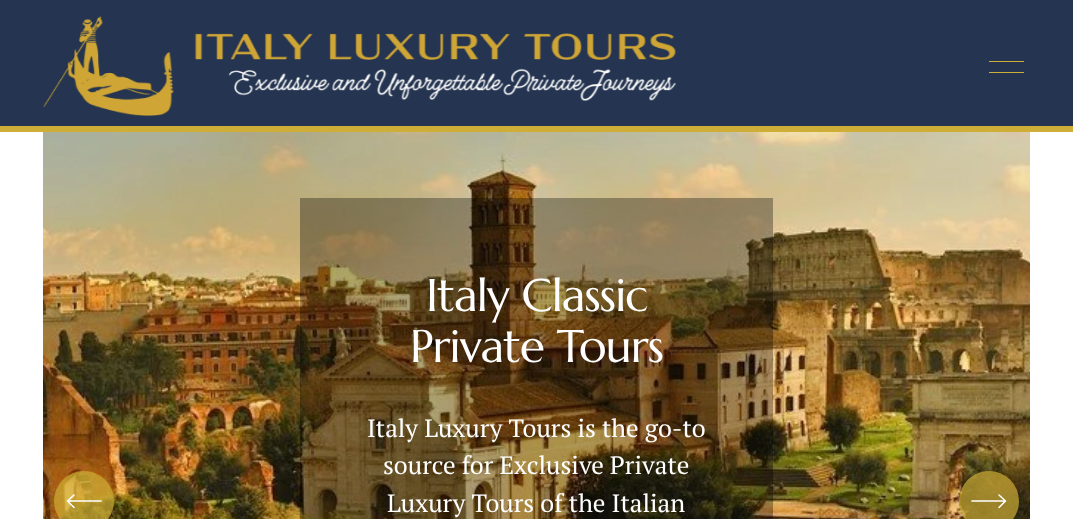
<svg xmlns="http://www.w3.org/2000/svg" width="1073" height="519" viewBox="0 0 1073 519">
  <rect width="100%" height="100%" fill="rgb(255,255,255)"/>
  <rect x="0" y="0" width="1073" height="126" fill="rgb(37,53,81)"/>
  <image x="43" y="16" width="633" height="100" href="pic1.png"/>
  <rect x="989" y="61" width="35" height="1" fill="rgb(206,174,54)"/>
  <rect x="989" y="72" width="35" height="1" fill="rgb(206,174,54)"/>
  <rect x="0" y="126" width="1073" height="6" fill="rgb(206,174,54)"/>
  <image x="43" y="132" width="987" height="387" href="pic2.png"/>
  <circle cx="84" cy="501" r="30" fill="rgba(206,174,54,0.7)"/>
  <path d="M74 507.5L67.5 501L74 495M101 501H69" fill="none" stroke="rgb(255,255,255)" stroke-width="1.6" stroke-linecap="round" stroke-linejoin="round"/>
  <rect x="300" y="198" width="473" height="321" fill="rgba(0,0,0,0.32)"/>
  <g font-family="Marcellus" font-size="45.75" letter-spacing="-0.9" fill="rgb(255,255,255)">
    <text x="426" y="311">Italy Classic</text>
    <text x="410" y="362">Private Tours</text>
  </g>
  <g font-family="PT Serif" font-size="25.1" fill="rgb(255,255,255)">
    <text x="367" y="437">Italy Luxury Tours is the go-to</text>
    <text x="383" y="474">source for Exclusive Private</text>
    <text x="387" y="512">Luxury Tours of the Italian</text>
  </g>
  <circle cx="989" cy="501" r="30" fill="rgba(206,174,54,0.7)"/>
  <path d="M999 495L1005.5 501L999 507.5M972 501H1004.5" fill="none" stroke="rgb(255,255,255)" stroke-width="1.6" stroke-linecap="round" stroke-linejoin="round"/>
</svg>
